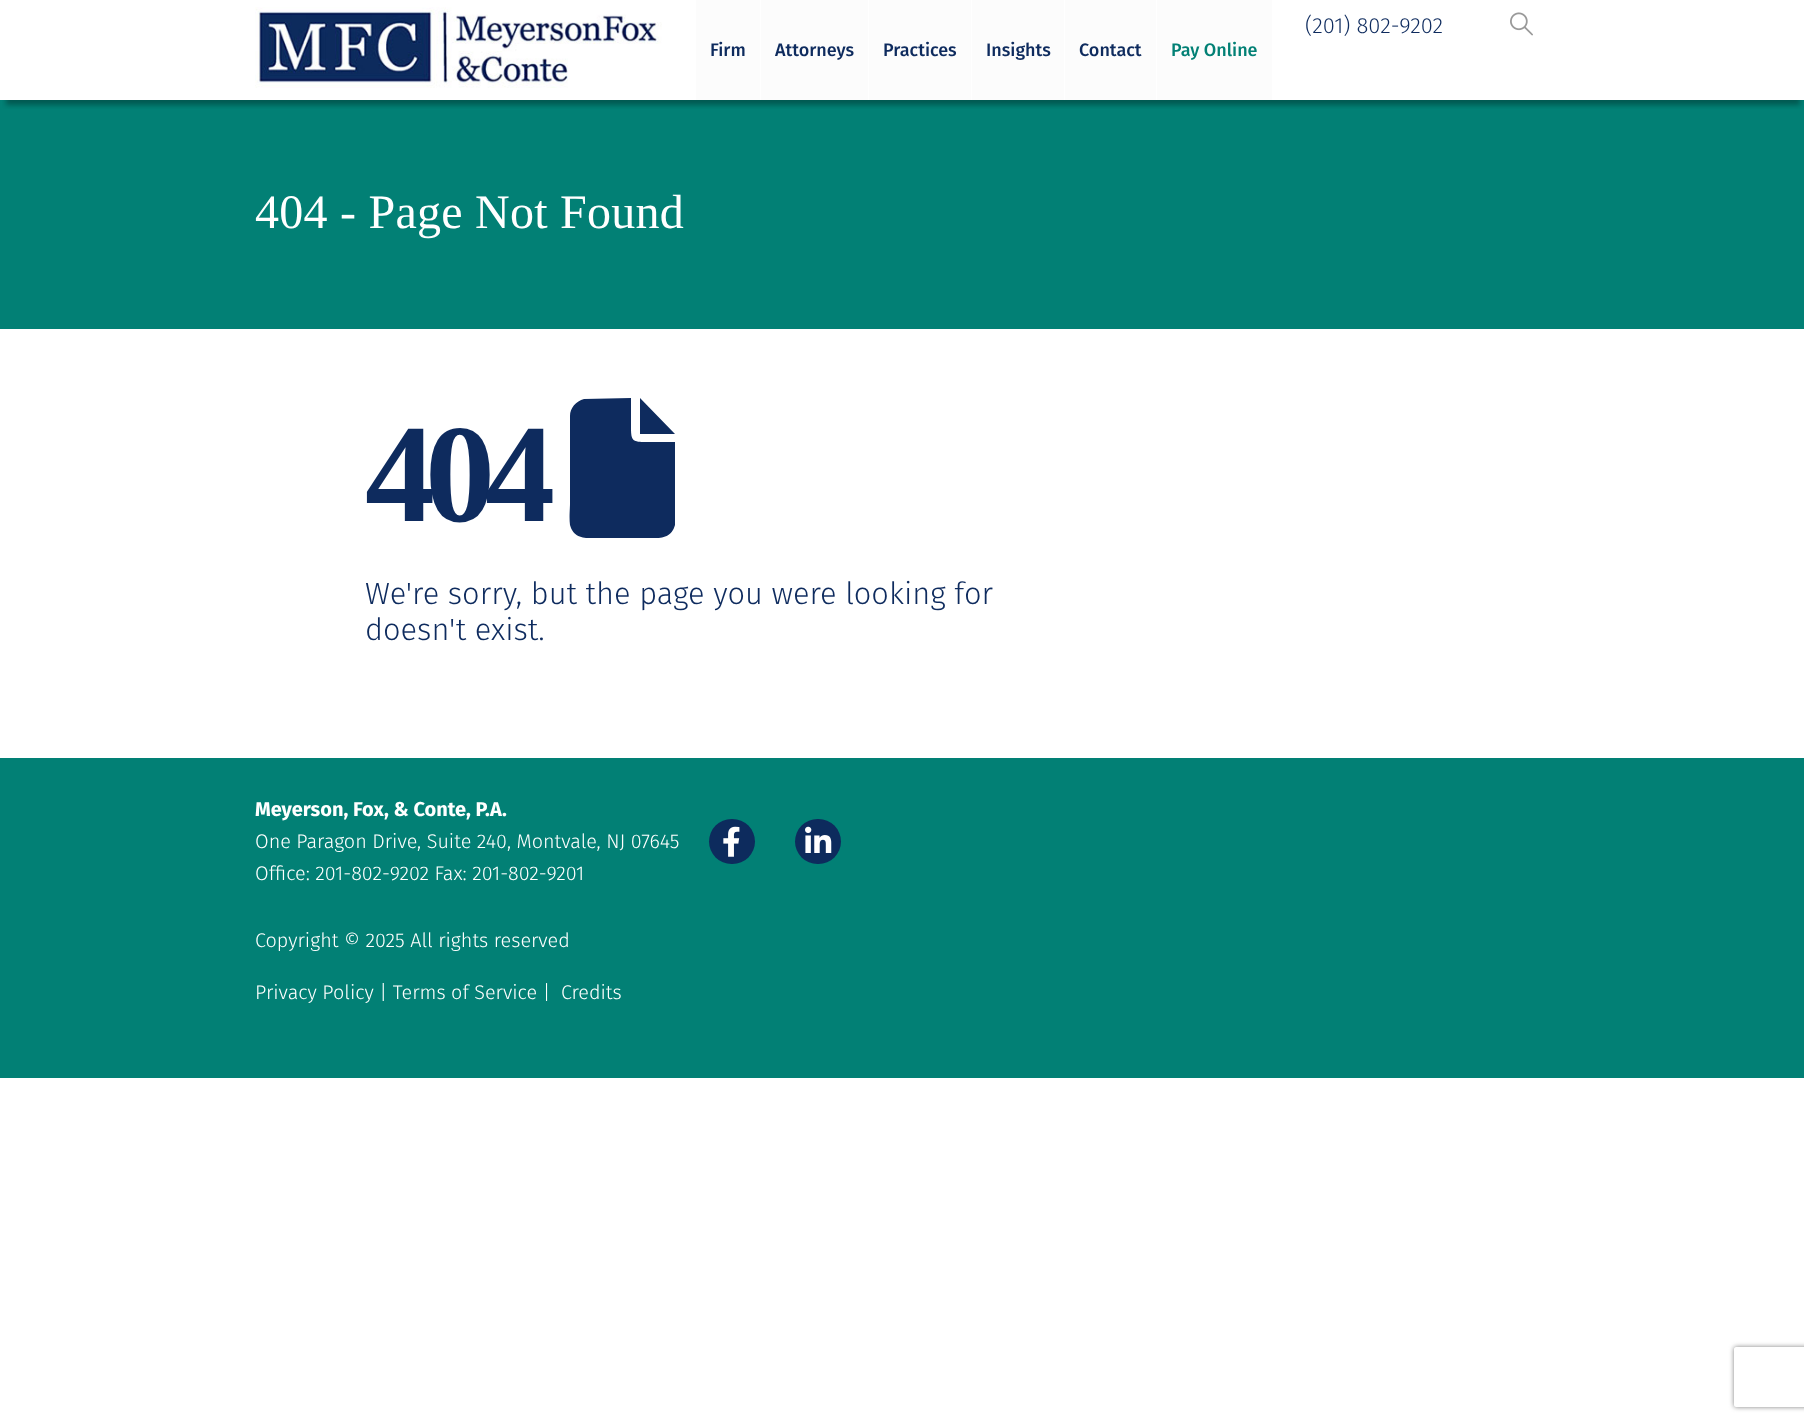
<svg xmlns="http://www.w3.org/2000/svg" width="1804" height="1421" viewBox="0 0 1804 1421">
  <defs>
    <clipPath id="clip1"><rect x="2" y="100" width="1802" height="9"/></clipPath>
    <clipPath id="clip2"><path d="M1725 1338H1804V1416H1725ZM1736 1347H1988C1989 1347 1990 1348 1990 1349V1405C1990 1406 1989 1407 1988 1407H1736C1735 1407 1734 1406 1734 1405V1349C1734 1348 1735 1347 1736 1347Z" clip-rule="evenodd"/></clipPath>
  </defs>
  <rect width="100%" height="100%" fill="rgb(255,255,255)"/>
  <rect x="0" y="100" width="1804" height="229" fill="rgb(2,128,117)"/>
  <g clip-path="url(#clip1)">
    <rect x="6" y="15" width="1794" height="90" fill="rgba(0,0,0,0.3)" filter="blur(2.5px)"/>
  </g>
  <image x="255" y="7" width="407" height="81" href="pic1.png"/>
  <text x="1305" y="33" font-family="Fira Sans" font-size="22" font-weight="300" fill="rgb(14,43,94)">(201) 802-9202</text>
  <image x="1510" y="12" width="23" height="24" href="pic2.png"/>
  <rect x="696" y="0" width="64" height="100" fill="rgb(252,252,252)"/>
  <text x="710" y="56" font-family="Fira Sans" font-size="18" font-weight="500" fill="rgb(14,43,94)">Firm</text>
  <rect x="761" y="0" width="107" height="100" fill="rgb(252,252,252)"/>
  <text x="775" y="56" font-family="Fira Sans" font-size="18" font-weight="500" fill="rgb(14,43,94)">Attorneys</text>
  <rect x="869" y="0" width="102" height="100" fill="rgb(252,252,252)"/>
  <text x="883" y="56" font-family="Fira Sans" font-size="18" font-weight="500" fill="rgb(14,43,94)">Practices</text>
  <rect x="972" y="0" width="92" height="100" fill="rgb(252,252,252)"/>
  <text x="986" y="56" font-family="Fira Sans" font-size="18" font-weight="500" fill="rgb(14,43,94)">Insights</text>
  <rect x="1065" y="0" width="91" height="100" fill="rgb(252,252,252)"/>
  <text x="1079" y="56" font-family="Fira Sans" font-size="18" font-weight="500" fill="rgb(14,43,94)">Contact</text>
  <rect x="1157" y="0" width="115" height="100" fill="rgb(252,252,252)"/>
  <text x="1171" y="56" font-family="Fira Sans" font-size="18" font-weight="500" fill="rgb(2,128,117)">Pay Online</text>
  <text x="255" y="228" font-family="Liberation Serif" font-size="48" letter-spacing="0.25" fill="rgb(255,255,255)">404 - Page Not Found</text>
  <text x="365" y="521" font-family="Liberation Serif" font-size="140" font-weight="bold" letter-spacing="-10" fill="rgb(14,43,94)">404</text>
  <path d="M570 416C570 408 576 401 584 399L631 398V428C631 441 633 442 646 442H675V525C671 540 658 538 646 538H599C587 538 574 540 570 525C569 518 570 508 570 504ZM675 434H640V398Z" fill="rgb(14,43,94)"/>
  <g font-family="Fira Sans" font-size="30.8" font-weight="300" fill="rgb(14,43,94)">
    <text>
      <tspan x="365" y="604">We're sorry, but the page you were looking for</tspan>
      <tspan x="365" y="640">doesn't exist.</tspan>
    </text>
  </g>
  <rect x="0" y="758" width="1804" height="320" fill="rgb(2,128,117)"/>
  <text x="255" y="816" font-family="Fira Sans" font-size="20" font-weight="bold" fill="rgb(255,255,255)">Meyerson, Fox, &amp; Conte, P.A.</text>
  <g font-family="Fira Sans" font-size="19.8" font-weight="300" fill="rgb(255,255,255)">
    <text>
      <tspan x="255" y="848">One Paragon Drive, Suite 240, Montvale, NJ 07645</tspan>
      <tspan x="255" y="880">Office: 201-802-9202 Fax: 201-802-9201</tspan>
    </text>
    <text x="255" y="947">Copyright © 2025 All rights reserved</text>
    <text x="255" y="999">Privacy Policy | Terms of Service |</text>
    <text x="561" y="999">Credits</text>
  </g>
  <rect x="709" y="819" width="46" height="45" rx="22.5" fill="rgb(13,43,93)"/>
  <image x="723" y="826" width="17" height="31" href="pic3.png"/>
  <rect x="795" y="819" width="46" height="45" rx="22.5" fill="rgb(13,43,93)"/>
  <image x="805" y="826" width="27" height="27" href="pic4.png"/>
  <g clip-path="url(#clip2)">
    <rect x="1734" y="1347" width="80" height="60" rx="2" fill="rgb(128,128,128)" filter="blur(2.5px)"/>
  </g>
</svg>
